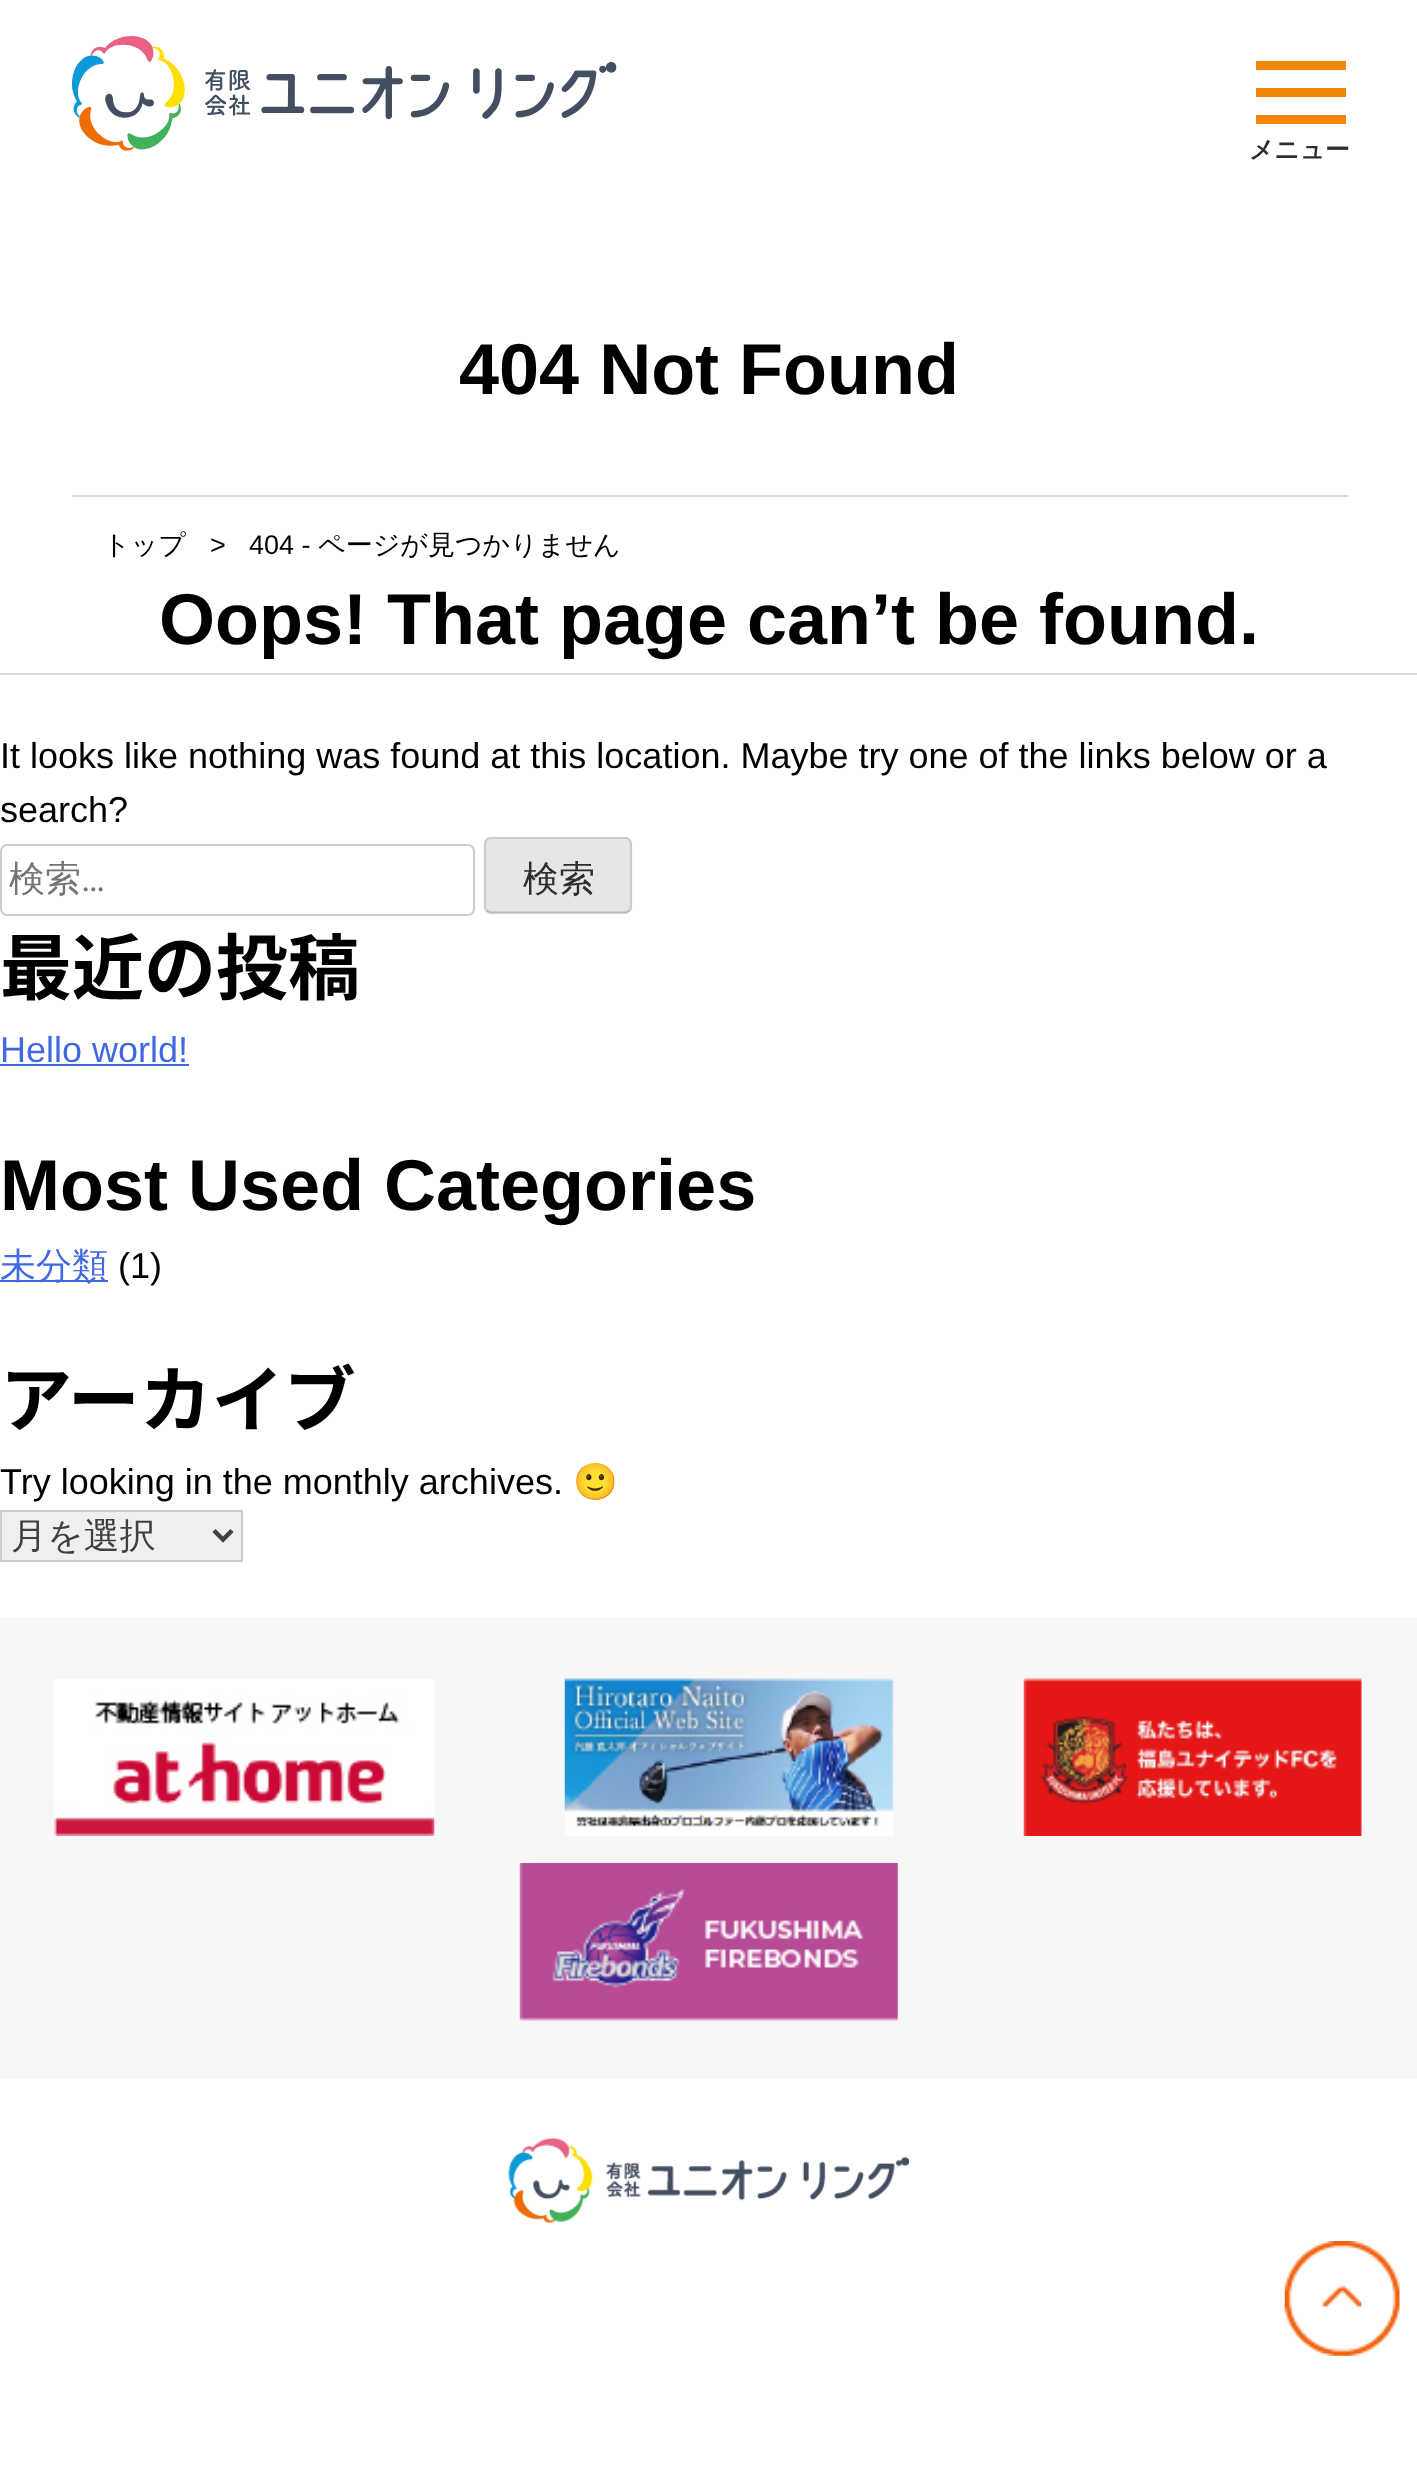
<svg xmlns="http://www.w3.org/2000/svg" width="1417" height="2479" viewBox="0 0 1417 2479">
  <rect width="100%" height="100%" fill="rgb(255,255,255)"/>
  <image x="72" y="36" width="545" height="115" href="pic1.png"/>
  <rect x="1256" y="61" width="90" height="9" fill="rgb(242,135,5)"/>
  <rect x="1256" y="88" width="90" height="9" fill="rgb(242,135,5)"/>
  <rect x="1256" y="115" width="90" height="9" fill="rgb(242,135,5)"/>
  <text x="1249" y="158" font-family="WenQuanYi Zen Hei" font-size="24.75" font-weight="bold" fill="rgb(46,46,46)">メニュー</text>
  <rect x="72" y="495" width="1276" height="2" fill="rgb(217,217,217)"/>
  <text x="459" y="394" font-family="Liberation Sans" font-size="72" font-weight="bold" fill="rgb(0,0,0)">404 Not Found</text>
  <text x="103" y="554" font-family="WenQuanYi Zen Hei" font-size="27" font-weight="500" fill="rgb(0,0,0)">トップ</text>
  <g font-family="Liberation Sans" font-size="27" fill="rgb(0,0,0)">
    <text x="210" y="554">&gt;</text>
    <text x="249" y="554">404 -</text>
  </g>
  <text x="318" y="554" font-family="WenQuanYi Zen Hei" font-size="27" font-weight="500" fill="rgb(0,0,0)">ページが見つかりません</text>
  <rect x="0" y="673" width="1417" height="2" fill="rgb(217,217,217)"/>
  <text x="159" y="644" font-family="Liberation Sans" font-size="72" font-weight="bold" fill="rgb(0,0,0)">Oops! That page can’t be found.</text>
  <g font-family="Liberation Sans" font-size="36" fill="rgb(0,0,0)">
    <text>
      <tspan x="0" y="768">It looks like nothing was found at this location. Maybe try one of the links below or a</tspan>
      <tspan x="0" y="822">search?</tspan>
    </text>
  </g>
  <rect x="1" y="845" width="473" height="70" rx="6" fill="none" stroke="rgb(204,204,204)" stroke-width="2"/>
  <text x="9" y="891" font-family="WenQuanYi Zen Hei" font-size="36" font-weight="500" fill="rgb(117,117,117)">検索</text>
  <text x="81" y="891" font-family="Roboto" font-size="36" fill="rgb(117,117,117)">…</text>
  <rect x="484" y="837" width="148" height="77" rx="7" fill="rgb(230,230,230)"/>
  <path d="M629.5 910.5L626 912.5H490L486.5 910.5" fill="none" stroke="rgb(187,187,187)" stroke-width="2.2"/>
  <path d="M486.5 910.5C485.5 909.5 485 908 485 907V844C485 842.5 485.5 841 486.5 840C487.5 838.5 489 838 490.5 838H625.5C627 838 628.5 838.5 629.5 840C630.5 841 631 842.5 631 844V907C631 908 630.5 909.5 629.5 910.5" fill="none" stroke="rgb(204,204,204)" stroke-width="2.2"/>
  <text x="523" y="891" font-family="WenQuanYi Zen Hei" font-size="36" font-weight="500" fill="rgb(46,46,46)">検索</text>
  <text x="0" y="994" font-family="Noto Sans JP" font-size="72" font-weight="bold" fill="rgb(0,0,0)">最近の投稿</text>
  <text x="0" y="1062" font-family="Liberation Sans" font-size="36" fill="rgb(65,105,225)">Hello world!</text>
  <rect x="0" y="1064" width="189" height="2" fill="rgb(65,105,225)"/>
  <text x="0" y="1210" font-family="Liberation Sans" font-size="72" font-weight="bold" fill="rgb(0,0,0)">Most Used Categories</text>
  <rect x="0" y="1280" width="108" height="2" fill="rgb(65,105,225)"/>
  <text x="0" y="1278" font-family="WenQuanYi Zen Hei" font-size="36" font-weight="500" fill="rgb(65,105,225)">未分類</text>
  <text x="118" y="1278" font-family="Liberation Sans" font-size="36" fill="rgb(0,0,0)">(1)</text>
  <text x="0" y="1426" font-family="Noto Sans JP" font-size="72" font-weight="bold" fill="rgb(0,0,0)">アーカイブ</text>
  <text x="0" y="1494" font-family="Liberation Sans" font-size="36" fill="rgb(0,0,0)">Try looking in the monthly archives.</text>
  <text x="573" y="1494" font-family="Noto Color Emoji" font-size="36" fill="rgb(0,0,0)">🙂</text>
  <rect x="1" y="1511" width="241" height="50" fill="rgb(239,239,239)" stroke="rgb(204,204,204)" stroke-width="2"/>
  <path d="M214 1530.5L223 1539.5L232 1530.5" fill="none" stroke="rgb(64,64,64)" stroke-width="4.5"/>
  <text x="11" y="1548" font-family="WenQuanYi Zen Hei" font-size="36" font-weight="500" fill="rgb(64,64,64)">月を選択</text>
  <rect x="0" y="1618" width="1417" height="461" fill="rgb(247,247,247)"/>
  <image x="54" y="1678" width="381" height="158" href="pic2.png"/>
  <image x="564" y="1678" width="330" height="158" href="pic3.png"/>
  <image x="1023" y="1678" width="341" height="158" href="pic4.png"/>
  <image x="519" y="1863" width="379" height="158" href="pic5.png"/>
  <image x="508" y="2137" width="401" height="86" href="pic6.png"/>
  <image x="1284" y="2241" width="116" height="115" href="pic7.png"/>
</svg>
